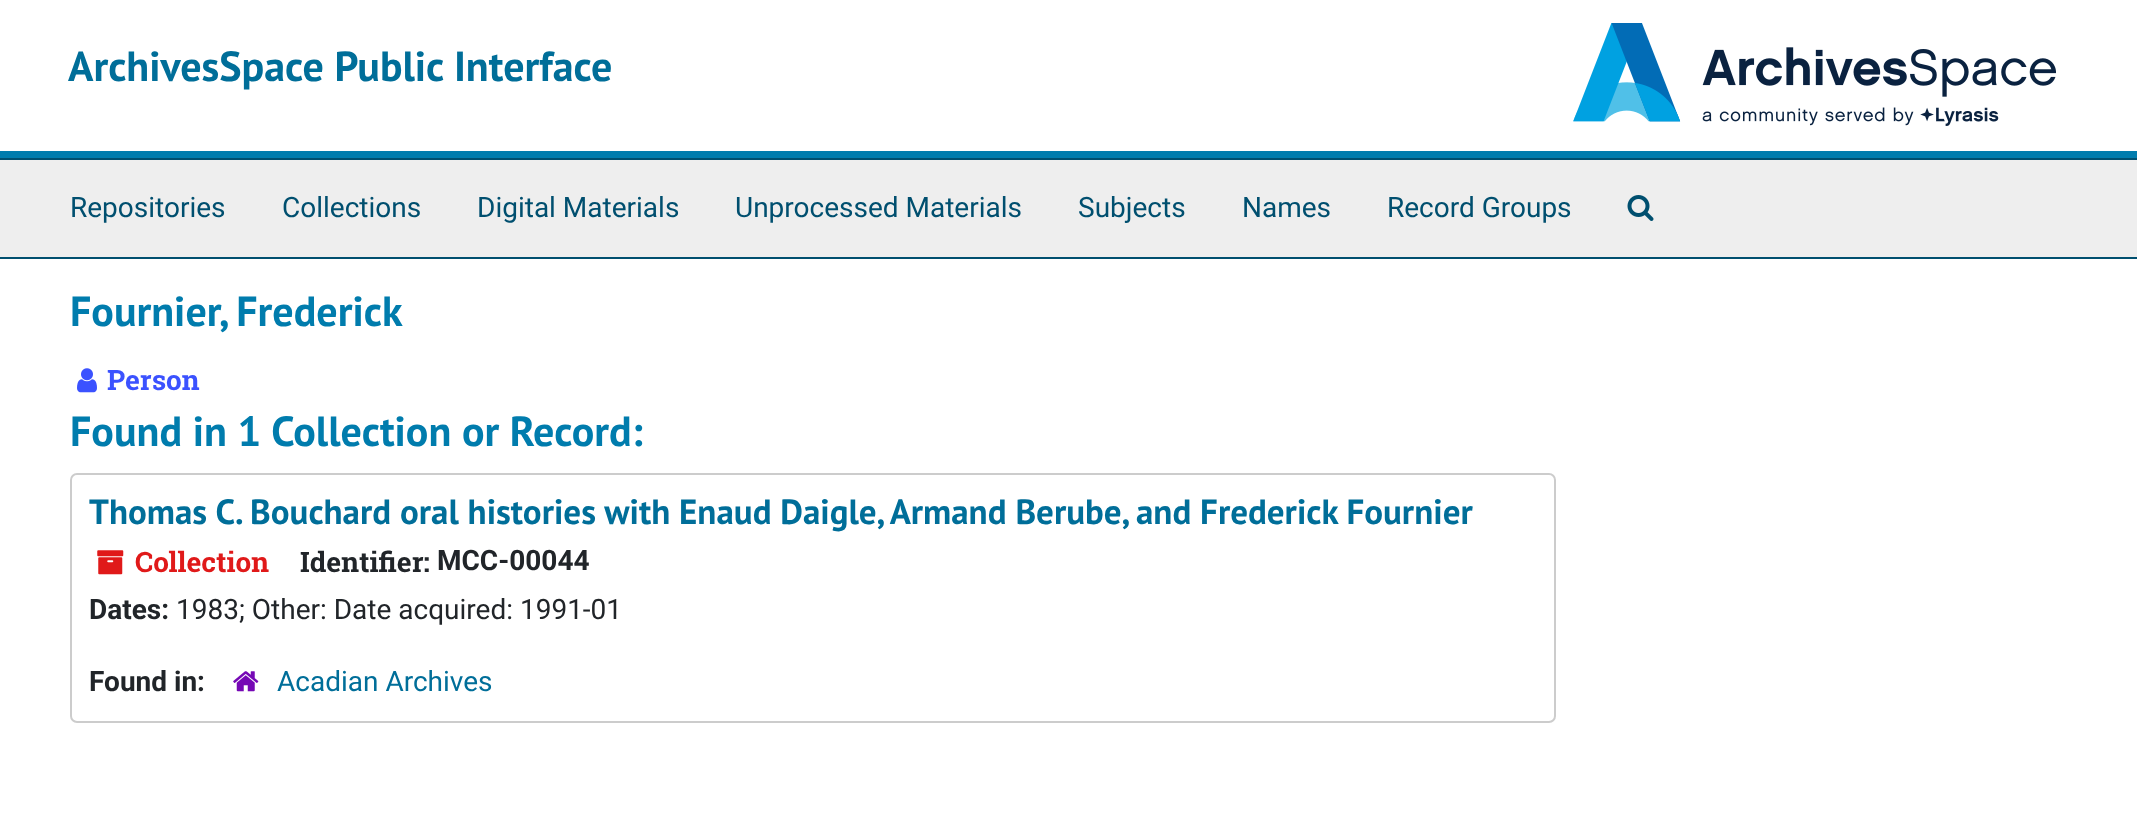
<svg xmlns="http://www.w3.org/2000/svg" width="2137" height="831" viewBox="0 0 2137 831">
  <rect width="100%" height="100%" fill="rgb(255,255,255)"/>
  <rect x="0" y="151" width="2137" height="7" fill="rgb(0,124,173)"/>
  <text x="68" y="81" font-family="PT Sans" font-size="42" font-weight="bold" fill="rgb(0,110,153)">ArchivesSpace Public Interface</text>
  <image x="1573" y="23" width="483" height="103" href="pic1.png"/>
  <rect x="0" y="160" width="2137" height="97" fill="rgb(238,238,238)"/>
  <rect x="0" y="158" width="2137" height="2" fill="rgb(0,79,111)"/>
  <rect x="0" y="257" width="2137" height="2" fill="rgb(0,79,111)"/>
  <g font-family="Roboto" font-size="28" fill="rgb(0,79,111)">
    <text x="70" y="217">Repositories</text>
    <text x="282" y="217">Collections</text>
    <text x="477" y="217">Digital Materials</text>
    <text x="735" y="217">Unprocessed Materials</text>
    <text x="1078" y="217">Subjects</text>
    <text x="1242" y="217">Names</text>
    <text x="1387" y="217">Record Groups</text>
  </g>
  <image x="1627" y="195" width="27" height="26" href="pic2.png"/>
  <text x="70" y="326" font-family="PT Sans" font-size="42" font-weight="bold" fill="rgb(0,124,173)">Fournier, Frederick</text>
  <image x="77" y="368" width="20" height="25" href="pic3.png"/>
  <text x="107" y="390" font-family="Roboto Slab" font-size="28" font-weight="bold" fill="rgb(59,82,255)">Person</text>
  <text x="70" y="446" font-family="PT Sans" font-size="42" font-weight="bold" fill="rgb(0,124,173)">Found in 1 Collection or Record:</text>
  <rect x="71" y="474" width="1484" height="248" rx="6" fill="none" stroke="rgb(204,204,204)" stroke-width="2"/>
  <text x="89" y="524" font-family="PT Sans" font-size="35" font-weight="bold" fill="rgb(0,110,153)">Thomas C. Bouchard oral histories with Enaud Daigle, Armand Berube, and Frederick Fournier</text>
  <image x="97" y="550" width="27" height="25" href="pic4.png"/>
  <text x="135" y="572" font-family="Roboto Slab" font-size="28" font-weight="bold" fill="rgb(224,25,25)">Collection</text>
  <text x="300" y="572" font-family="Roboto Slab" font-size="28" font-weight="bold" fill="rgb(33,37,41)">Identifier:</text>
  <g font-family="Roboto" font-size="28" font-weight="bold" fill="rgb(33,37,41)">
    <text x="437" y="570">MCC-00044</text>
    <text x="89" y="619">Dates:</text>
  </g>
  <text x="176" y="619" font-family="Roboto" font-size="28" fill="rgb(33,37,41)">1983; Other: Date acquired: 1991-01</text>
  <text x="89" y="691" font-family="Roboto" font-size="28" font-weight="bold" fill="rgb(33,37,41)">Found in:</text>
  <image x="233" y="671" width="26" height="21" href="pic5.png"/>
  <text x="277" y="691" font-family="Roboto" font-size="28" fill="rgb(0,110,153)">Acadian Archives</text>
</svg>
